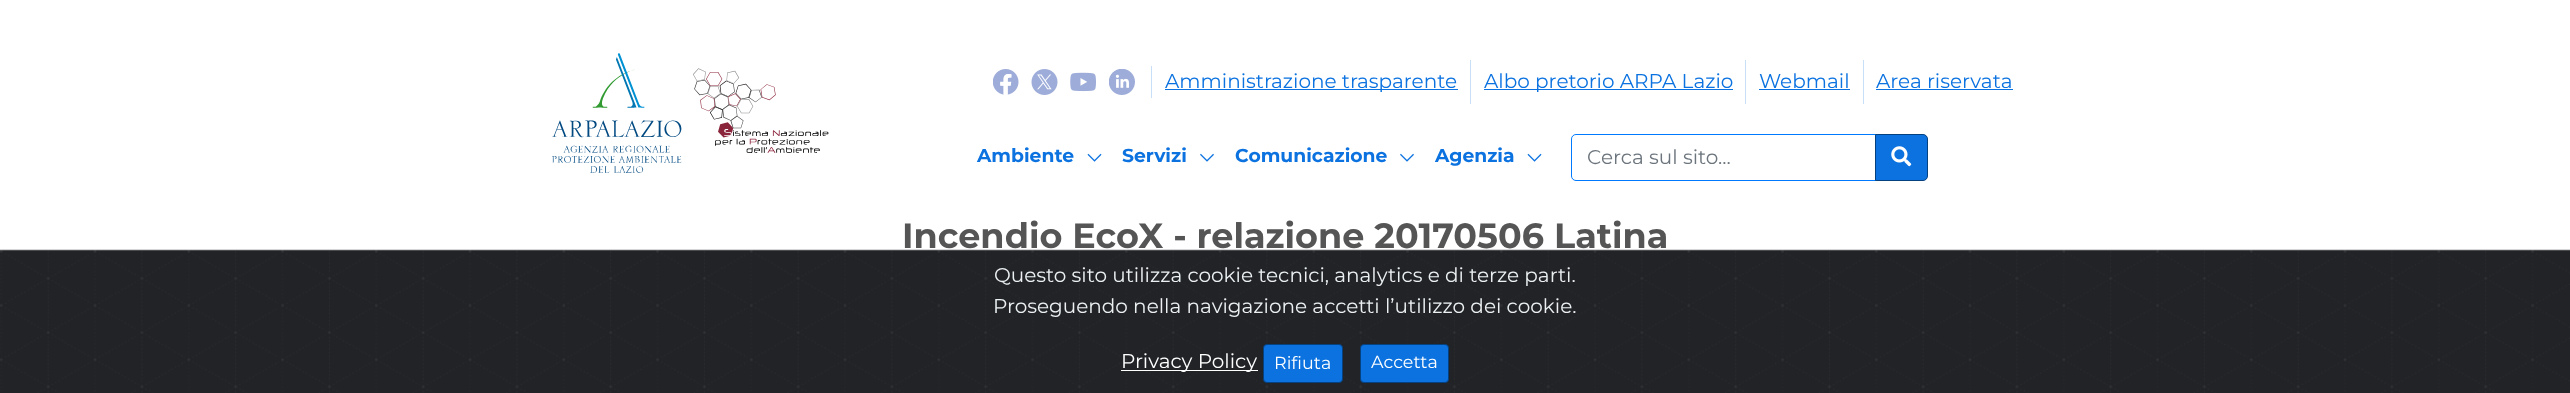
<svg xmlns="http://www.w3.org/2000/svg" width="2570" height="393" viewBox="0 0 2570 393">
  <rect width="100%" height="100%" fill="rgb(255,255,255)"/>
  <image x="552" y="53" width="130" height="120" href="pic1.png"/>
  <image x="693" y="68" width="136" height="85" href="pic2.png"/>
  <rect x="1151" y="66" width="1" height="32" fill="rgb(199,224,247)"/>
  <image x="993" y="69" width="26" height="26" href="pic3.png"/>
  <image x="1031" y="69" width="27" height="26" href="pic4.png"/>
  <image x="1070" y="72" width="26" height="20" href="pic5.png"/>
  <image x="1109" y="69" width="26" height="26" href="pic6.png"/>
  <rect x="1470" y="60" width="1" height="44" fill="rgb(199,224,247)"/>
  <rect x="1165" y="89" width="293" height="1" fill="rgb(11,114,224)"/>
  <text x="1165" y="88" font-family="Montserrat" font-size="20" fill="rgb(11,114,224)">Amministrazione trasparente</text>
  <rect x="1745" y="60" width="1" height="44" fill="rgb(199,224,247)"/>
  <rect x="1484" y="89" width="249" height="1" fill="rgb(11,114,224)"/>
  <text x="1484" y="88" font-family="Montserrat" font-size="20" fill="rgb(11,114,224)">Albo pretorio ARPA Lazio</text>
  <rect x="1863" y="60" width="1" height="44" fill="rgb(199,224,247)"/>
  <text x="1759" y="88" font-family="Montserrat" font-size="20" fill="rgb(11,114,224)">Webmail</text>
  <rect x="1759" y="89" width="91" height="1" fill="rgb(11,114,224)"/>
  <text x="1876" y="88" font-family="Montserrat" font-size="20" fill="rgb(11,114,224)">Area riservata</text>
  <rect x="1876" y="89" width="137" height="1" fill="rgb(11,114,224)"/>
  <text x="977" y="162" font-family="Montserrat" font-size="18.75" font-weight="bold" fill="rgb(11,114,224)">Ambiente</text>
  <image x="1087" y="153" width="15" height="9" href="pic7.png"/>
  <text x="1122" y="162" font-family="Montserrat" font-size="18.75" font-weight="bold" fill="rgb(11,114,224)">Servizi</text>
  <image x="1200" y="153" width="14" height="9" href="pic8.png"/>
  <text x="1235" y="162" font-family="Montserrat" font-size="18.75" font-weight="bold" fill="rgb(11,114,224)">Comunicazione</text>
  <image x="1400" y="153" width="14" height="9" href="pic8.png"/>
  <text x="1435" y="162" font-family="Montserrat" font-size="18.75" font-weight="bold" fill="rgb(11,114,224)">Agenzia</text>
  <image x="1527" y="153" width="15" height="9" href="pic7.png"/>
  <path d="M1576 134.5H1875.5V180.5H1576C1573.5 180.5 1571.5 178.5 1571.5 176V139C1571.5 136.5 1573.5 134.5 1576 134.5Z" fill="none" stroke="rgb(0,123,255)"/>
  <text x="1587" y="164" font-family="Montserrat" font-size="20" fill="rgb(108,117,125)">Cerca sul sito...</text>
  <path d="M1875.5 134.5H1923C1925.5 134.5 1927.5 136.5 1927.5 139V176C1927.5 178.5 1925.5 180.5 1923 180.5H1875.5Z" fill="rgb(11,114,224)" stroke="rgb(6,65,127)"/>
  <image x="1891" y="146" width="21" height="21" href="pic9.png"/>
  <text x="902" y="248" font-family="Montserrat" font-size="35" font-weight="bold" fill="rgb(85,85,85)">Incendio EcoX - relazione 20170506 Latina</text>
  <image x="0" y="249" width="2570" height="144" href="pic10.png"/>
  <g font-family="Montserrat" font-size="20" fill="rgb(236,240,241)">
    <text x="994" y="282">Questo sito utilizza cookie tecnici, analytics e di terze parti.</text>
    <text x="993" y="313">Proseguendo nella navigazione accetti l’utilizzo dei cookie.</text>
  </g>
  <rect x="1121" y="370" width="137" height="1" fill="rgb(255,255,255)"/>
  <text x="1121" y="368" font-family="Montserrat" font-size="20" fill="rgb(255,255,255)">Privacy Policy</text>
  <rect x="1263.5" y="344.5" width="79" height="38" rx="3.5" fill="rgb(11,114,224)" stroke="rgb(6,65,127)"/>
  <text x="1274" y="369" font-family="Montserrat" font-size="17.5" fill="rgb(255,255,255)">Rifiuta</text>
  <rect x="1360.5" y="344.5" width="88" height="38" rx="3.5" fill="rgb(11,114,224)" stroke="rgb(6,65,127)"/>
  <text x="1371" y="368" font-family="Montserrat" font-size="17.5" fill="rgb(255,255,255)">Accetta</text>
</svg>
